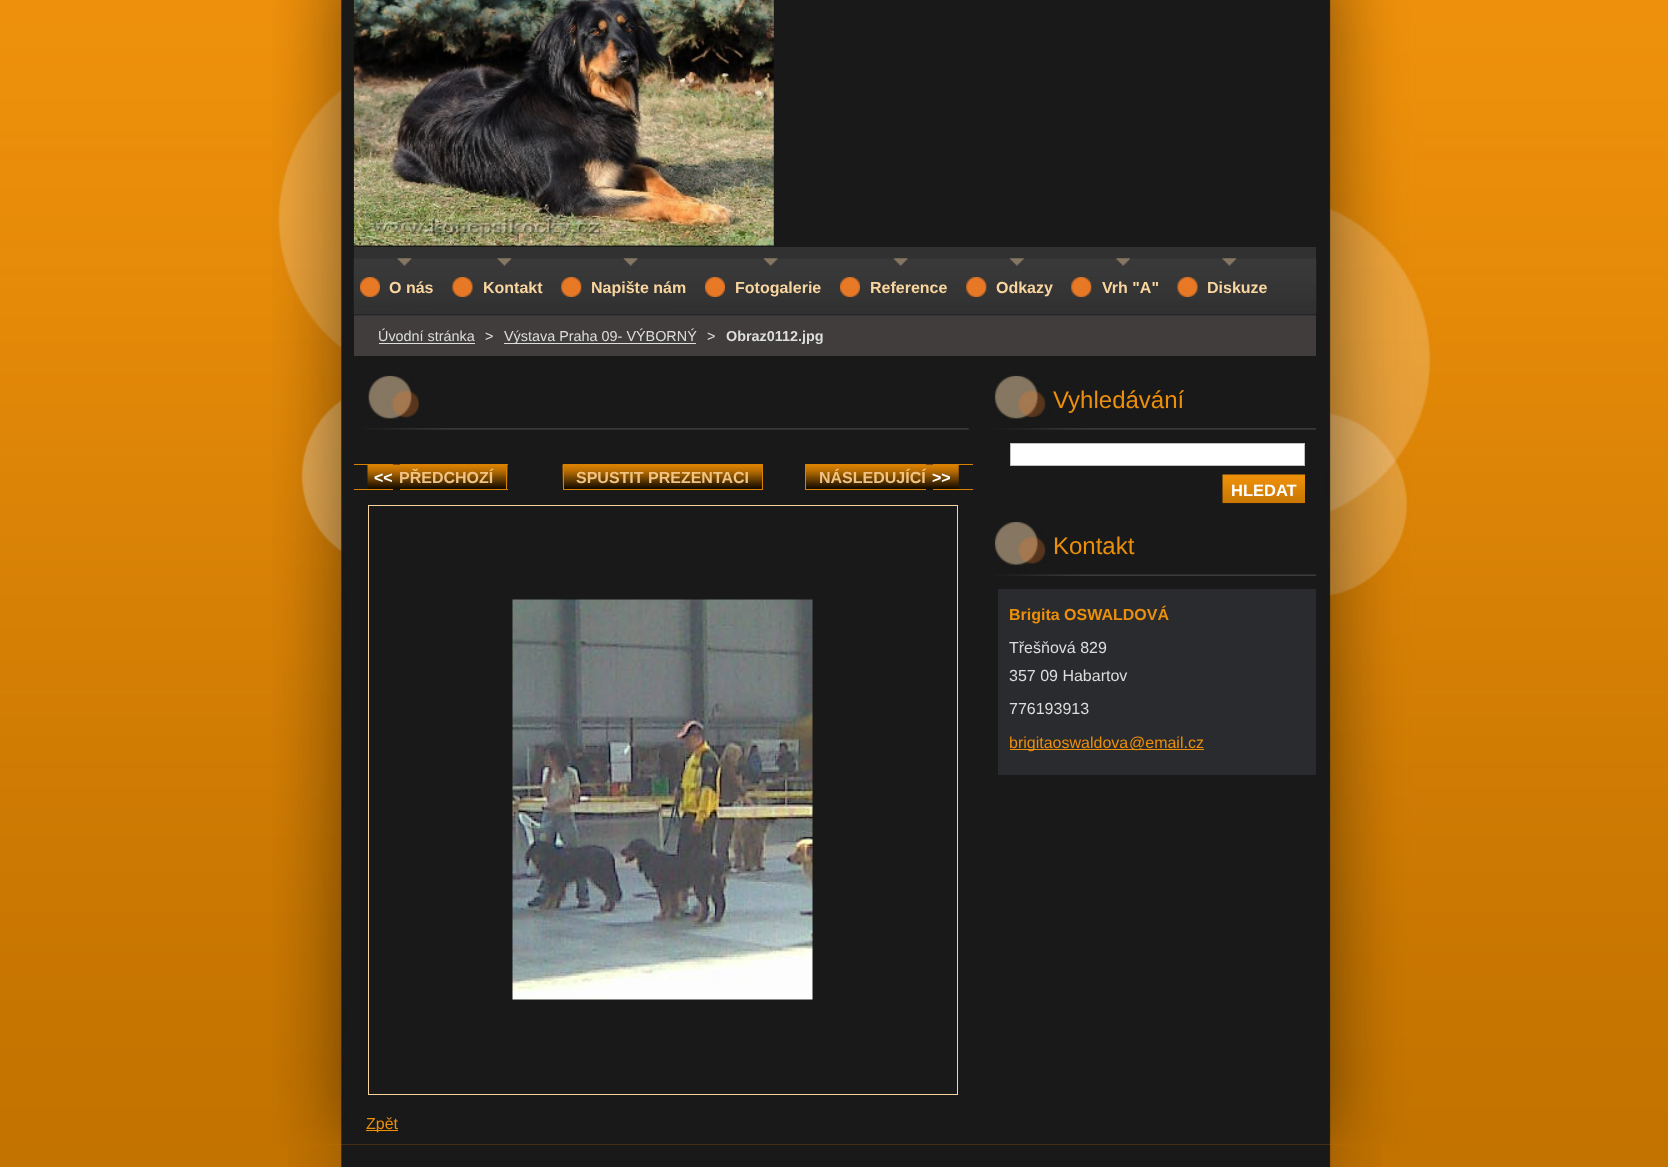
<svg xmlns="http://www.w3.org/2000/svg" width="1668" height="1167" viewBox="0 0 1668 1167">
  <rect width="100%" height="100%" fill="rgb(195,115,0)"/>
  <image x="288" y="1144" width="1094" height="23" href="pic1.png"/>
  <image x="0" y="0" width="1668" height="1145" href="pic2.png"/>
  <image x="272" y="0" width="1162" height="1145" href="pic3.png"/>
  <rect x="354" y="247" width="962" height="11" fill="rgb(49,49,49)"/>
  <image x="353" y="0" width="421" height="246" href="pic4.png"/>
  <image x="353" y="258" width="964" height="57" href="pic5.png"/>
  <rect x="354" y="258" width="962" height="1" fill="rgb(52,52,52)"/>
  <rect x="354" y="315" width="962" height="1" fill="rgb(50,53,55)"/>
  <image x="360" y="277" width="20" height="20" href="pic6.png"/>
  <image x="397" y="258" width="15" height="8" href="pic7.png"/>
  <text x="389" y="293" font-family="Liberation Sans" font-size="16" font-weight="bold" fill="rgb(249,213,159)">O nás</text>
  <image x="452" y="277" width="21" height="20" href="pic8.png"/>
  <image x="497" y="258" width="15" height="8" href="pic9.png"/>
  <text x="483" y="293" font-family="Liberation Sans" font-size="16" font-weight="bold" fill="rgb(249,213,159)">Kontakt</text>
  <image x="561" y="277" width="21" height="20" href="pic10.png"/>
  <image x="623" y="258" width="15" height="8" href="pic11.png"/>
  <text x="591" y="293" font-family="Liberation Sans" font-size="16" font-weight="bold" fill="rgb(249,213,159)">Napište nám</text>
  <image x="705" y="277" width="20" height="20" href="pic12.png"/>
  <image x="763" y="258" width="15" height="8" href="pic11.png"/>
  <text x="735" y="293" font-family="Liberation Sans" font-size="16" font-weight="bold" fill="rgb(249,213,159)">Fotogalerie</text>
  <image x="840" y="277" width="20" height="20" href="pic12.png"/>
  <image x="893" y="258" width="15" height="8" href="pic13.png"/>
  <text x="870" y="293" font-family="Liberation Sans" font-size="16" font-weight="bold" fill="rgb(249,213,159)">Reference</text>
  <image x="966" y="277" width="21" height="20" href="pic10.png"/>
  <image x="1010" y="258" width="14" height="8" href="pic14.png"/>
  <text x="996" y="293" font-family="Liberation Sans" font-size="16" font-weight="bold" fill="rgb(249,213,159)">Odkazy</text>
  <image x="1071" y="277" width="21" height="20" href="pic10.png"/>
  <image x="1116" y="258" width="14" height="8" href="pic15.png"/>
  <text x="1102" y="293" font-family="Liberation Sans" font-size="16" font-weight="bold" fill="rgb(249,213,159)">Vrh "A"</text>
  <image x="1177" y="277" width="21" height="20" href="pic8.png"/>
  <image x="1222" y="258" width="15" height="8" href="pic9.png"/>
  <text x="1207" y="293" font-family="Liberation Sans" font-size="16" font-weight="bold" fill="rgb(249,213,159)">Diskuze</text>
  <rect x="354" y="316" width="962" height="40" fill="rgb(65,61,61)"/>
  <text x="378" y="341" font-family="Liberation Sans" font-size="14.4" fill="rgb(221,221,221)">Úvodní stránka</text>
  <rect x="379" y="343" width="96" height="1" fill="rgb(221,221,221)"/>
  <text x="485" y="341" font-family="Liberation Sans" font-size="14.4" fill="rgb(221,221,221)">&gt;</text>
  <rect x="504" y="343" width="192" height="1" fill="rgb(221,221,221)"/>
  <g font-family="Liberation Sans" font-size="14.4" fill="rgb(221,221,221)">
    <text x="504" y="341">Výstava Praha 09- VÝBORNÝ</text>
    <text x="707" y="341">&gt;</text>
  </g>
  <text x="726" y="341" font-family="Liberation Sans" font-size="14.4" font-weight="bold" fill="rgb(221,221,221)">Obraz0112.jpg</text>
  <image x="364" y="375" width="605" height="55" href="pic16.png"/>
  <image x="367" y="464" width="141" height="26" href="pic17.png"/>
  <rect x="354" y="464" width="39" height="1" fill="rgb(218,129,1)"/>
  <rect x="354" y="489" width="39" height="1" fill="rgb(218,129,1)"/>
  <rect x="400" y="464" width="108" height="1" fill="rgb(218,129,1)"/>
  <rect x="506" y="464" width="1" height="26" fill="rgb(218,129,1)"/>
  <rect x="400" y="489" width="108" height="1" fill="rgb(218,129,1)"/>
  <text x="374" y="483" font-family="Liberation Sans" font-size="16" font-weight="bold" fill="rgb(255,255,255)">&lt;&lt;</text>
  <text x="399" y="483" font-family="Liberation Sans" font-size="16" font-weight="bold" fill="rgb(240,195,131)">PŘEDCHOZÍ</text>
  <image x="562" y="464" width="200" height="26" href="pic18.png"/>
  <rect x="563.5" y="464.5" width="199" height="25" fill="none" stroke="rgb(218,129,1)"/>
  <text x="576" y="483" font-family="Liberation Sans" font-size="16" font-weight="bold" fill="rgb(240,195,131)">SPUSTIT PREZENTACI</text>
  <image x="806" y="464" width="153" height="26" href="pic19.png"/>
  <rect x="805" y="464" width="121" height="1" fill="rgb(218,129,1)"/>
  <rect x="805" y="489" width="121" height="1" fill="rgb(218,129,1)"/>
  <rect x="805" y="464" width="1" height="26" fill="rgb(218,129,1)"/>
  <rect x="933" y="464" width="40" height="1" fill="rgb(218,129,1)"/>
  <rect x="933" y="489" width="40" height="1" fill="rgb(218,129,1)"/>
  <text x="819" y="483" font-family="Liberation Sans" font-size="16" font-weight="bold" fill="rgb(240,195,131)">NÁSLEDUJÍCÍ</text>
  <text x="932" y="483" font-family="Liberation Sans" font-size="16" font-weight="bold" fill="rgb(255,255,255)">&gt;&gt;</text>
  <rect x="368.5" y="505.5" width="589" height="589" fill="none" stroke="rgb(249,213,159)"/>
  <image x="512" y="599" width="301" height="401" href="pic20.png"/>
  <rect x="366" y="1130" width="32" height="1" fill="rgb(236,143,10)"/>
  <text x="366" y="1129" font-family="Liberation Sans" font-size="16" fill="rgb(236,143,10)">Zpět</text>
  <image x="994" y="375" width="322" height="55" href="pic21.png"/>
  <text x="1053" y="408" font-family="Liberation Sans" font-size="24" fill="rgb(236,143,10)">Vyhledávání</text>
  <rect x="1010.5" y="443.5" width="294" height="22" fill="rgb(255,255,255)" stroke="rgb(193,193,193)"/>
  <image x="1222" y="474" width="83" height="30" href="pic22.png"/>
  <text x="1231" y="496" font-family="Liberation Sans" font-size="16.5" font-weight="bold" fill="rgb(255,255,255)">HLEDAT</text>
  <image x="994" y="522" width="322" height="54" href="pic23.png"/>
  <text x="1053" y="554" font-family="Liberation Sans" font-size="24" fill="rgb(236,143,10)">Kontakt</text>
  <rect x="998" y="589" width="318" height="186" fill="rgb(41,43,46)"/>
  <text x="1009" y="620" font-family="Liberation Sans" font-size="16" font-weight="bold" fill="rgb(236,143,10)">Brigita OSWALDOVÁ</text>
  <g font-family="Liberation Sans" font-size="16" fill="rgb(221,221,221)">
    <text>
      <tspan x="1009" y="653">Třešňová 829</tspan>
      <tspan x="1009" y="681">357 09 Habartov</tspan>
    </text>
    <text x="1009" y="714">776193913</text>
  </g>
  <rect x="1010" y="749" width="51" height="1" fill="rgb(236,143,10)"/>
  <text x="1009" y="748" font-family="Liberation Sans" font-size="16" fill="rgb(236,143,10)">brigitaoswaldova</text>
  <rect x="1061" y="749" width="134" height="1" fill="rgb(236,143,10)"/>
  <text x="1129" y="748" font-family="Liberation Sans" font-size="16" fill="rgb(236,143,10)">@email.cz</text>
  <rect x="1195" y="749" width="9" height="1" fill="rgb(236,143,10)"/>
</svg>
